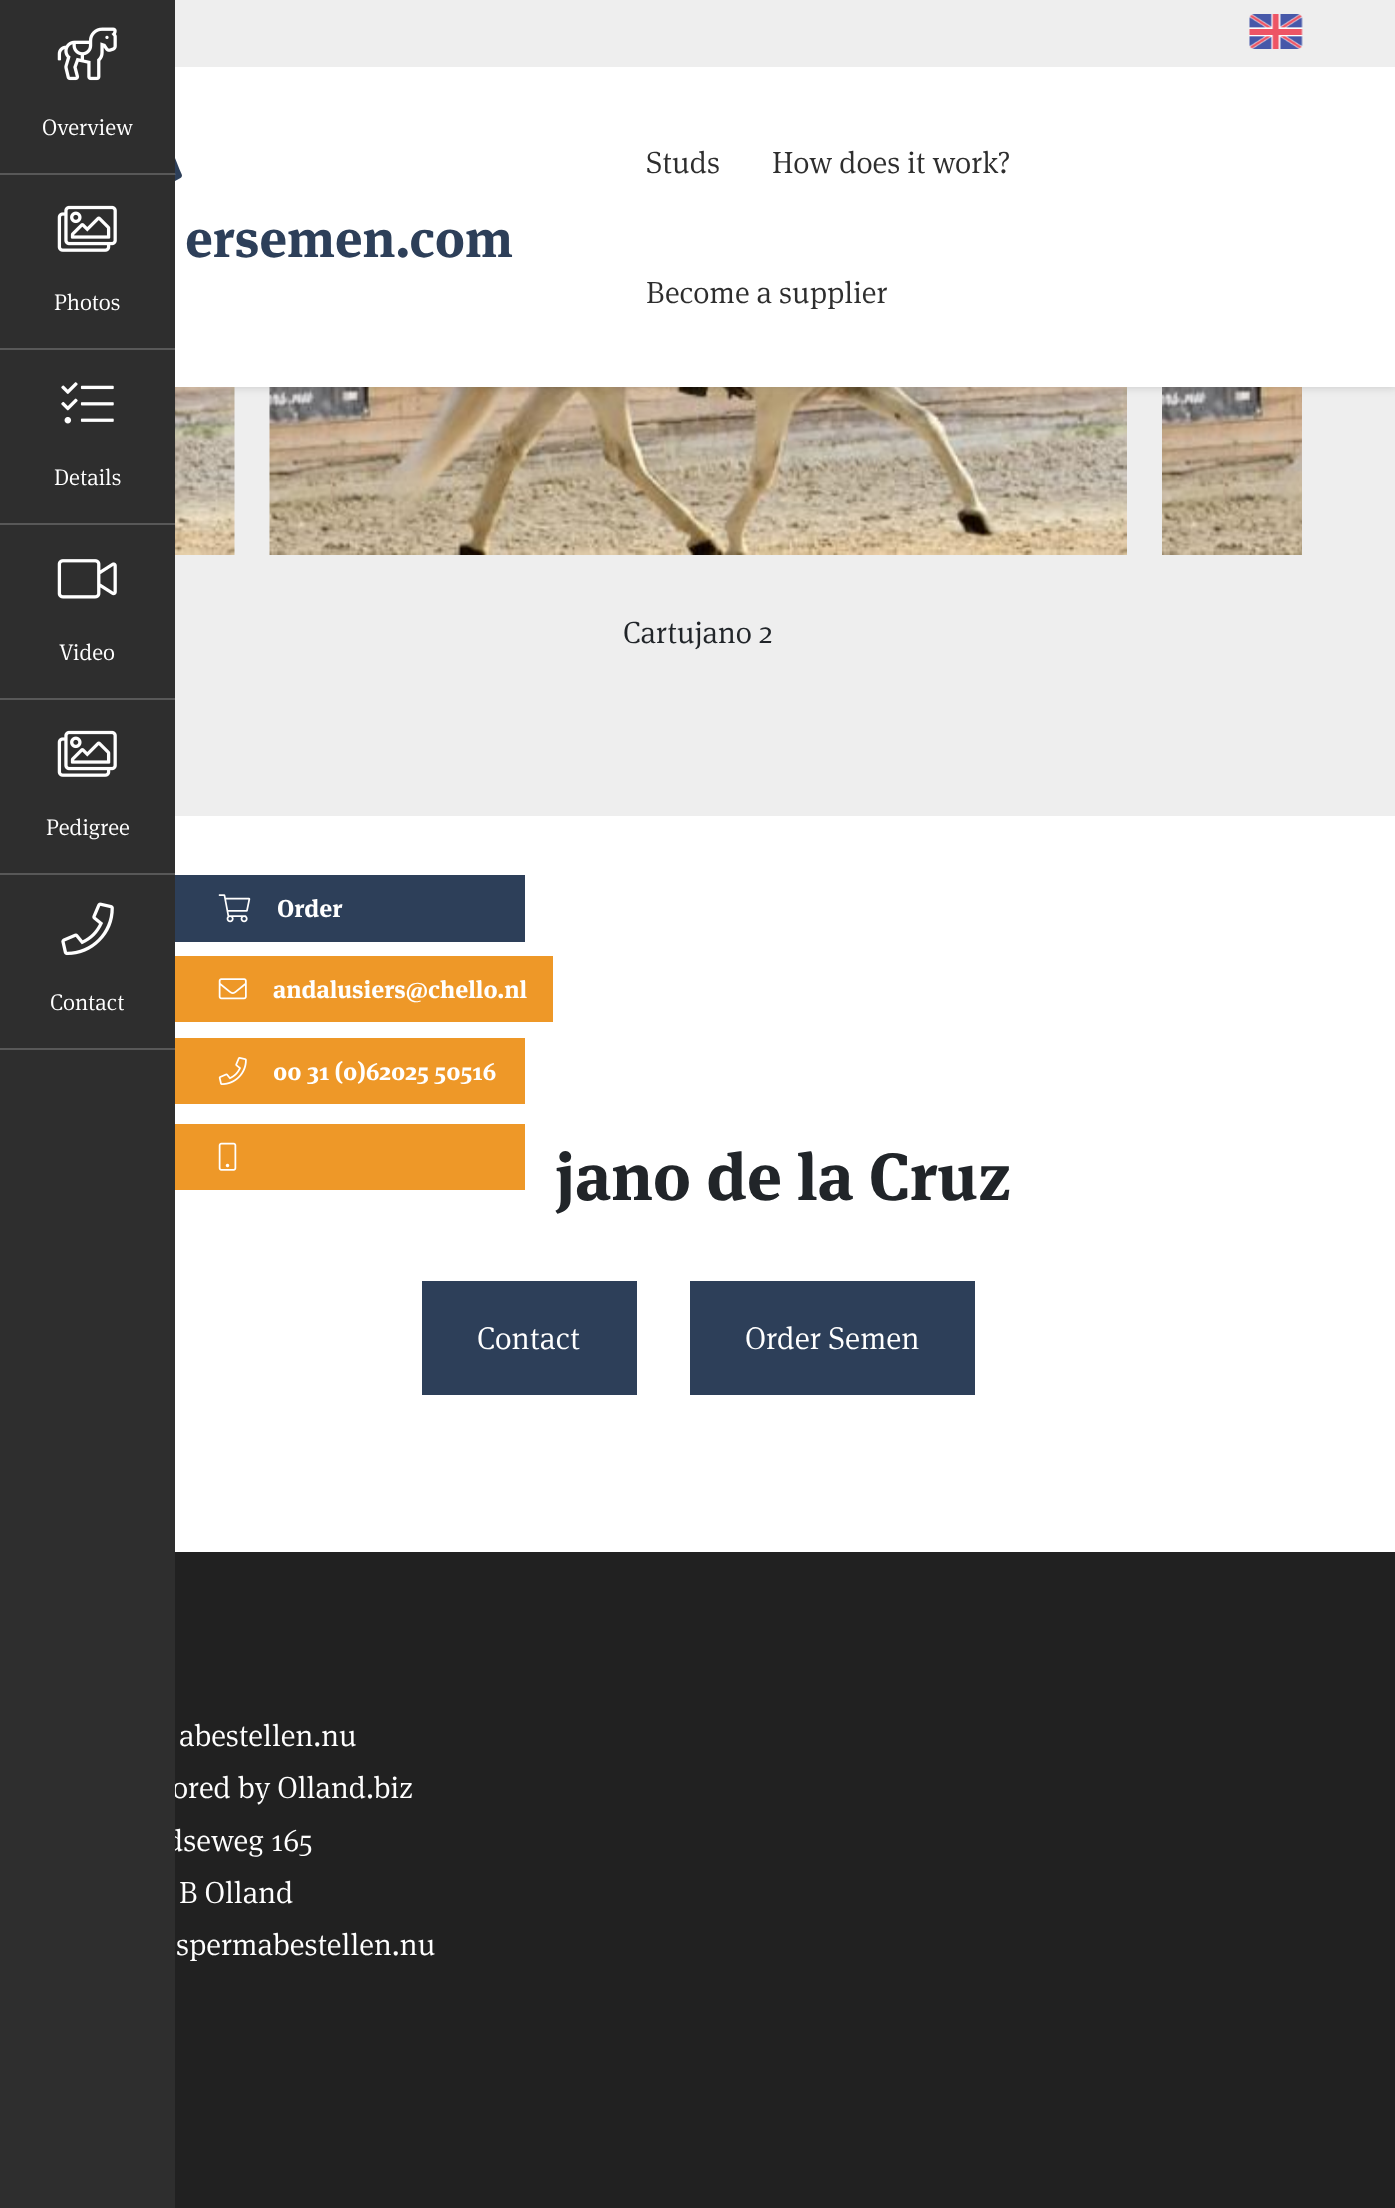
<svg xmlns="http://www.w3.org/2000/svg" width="1395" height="2208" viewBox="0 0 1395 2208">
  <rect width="100%" height="100%" fill="rgb(255,255,255)"/>
  <rect x="175" y="387" width="1220" height="429" fill="rgb(238,238,238)"/>
  <image x="175" y="387" width="60" height="168" href="pic10.png"/>
  <image x="1162" y="387" width="140" height="168" href="pic11.png"/>
  <image x="269" y="387" width="858" height="168" href="pic12.png"/>
  <rect x="0" y="0" width="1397" height="387" fill="rgba(46,46,46,0.2)" filter="blur(5px)"/>
  <rect x="175" y="1552" width="1220" height="656" fill="rgb(33,33,33)"/>
  <g font-family="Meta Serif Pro" font-size="30.75" font-weight="300" fill="rgb(255,255,255)">
    <text x="172" y="1798">ored by Olland.biz</text>
    <text x="166" y="1851">dseweg 165</text>
  </g>
  <rect x="0" y="0" width="175" height="2208" fill="rgb(46,46,46)"/>
  <rect x="0" y="173" width="175" height="2" fill="rgb(88,88,88)"/>
  <image x="57" y="27" width="60" height="54" href="pic1.png"/>
  <text x="42" y="135" font-family="Meta Serif Pro" font-size="22.75" font-weight="300" fill="rgb(255,255,255)">Overview</text>
  <rect x="0" y="348" width="175" height="2" fill="rgb(88,88,88)"/>
  <image x="57" y="205" width="60" height="47" href="pic2.png"/>
  <text x="54" y="310" font-family="Meta Serif Pro" font-size="22.75" font-weight="300" fill="rgb(255,255,255)">Photos</text>
  <rect x="0" y="523" width="175" height="2" fill="rgb(88,88,88)"/>
  <image x="61" y="382" width="53" height="42" href="pic3.png"/>
  <text x="54" y="485" font-family="Meta Serif Pro" font-size="22.75" font-weight="300" fill="rgb(255,255,255)">Details</text>
  <rect x="0" y="698" width="175" height="2" fill="rgb(88,88,88)"/>
  <image x="57" y="559" width="60" height="40" href="pic4.png"/>
  <text x="59" y="660" font-family="Meta Serif Pro" font-size="22.75" font-weight="300" fill="rgb(255,255,255)">Video</text>
  <rect x="0" y="873" width="175" height="2" fill="rgb(88,88,88)"/>
  <image x="57" y="730" width="60" height="47" href="pic2.png"/>
  <text x="46" y="835" font-family="Meta Serif Pro" font-size="22.75" font-weight="300" fill="rgb(255,255,255)">Pedigree</text>
  <rect x="0" y="1048" width="175" height="2" fill="rgb(88,88,88)"/>
  <rect x="175" y="875" width="350" height="67" fill="rgb(45,63,89)"/>
  <image x="218" y="894" width="33" height="29" href="pic5.png"/>
  <text x="277" y="917" font-family="Meta Serif Pro" font-size="24.5" font-weight="bold" fill="rgb(255,255,255)">Order</text>
  <image x="61" y="902" width="53" height="54" href="pic6.png"/>
  <text x="50" y="1010" font-family="Meta Serif Pro" font-size="22.75" font-weight="300" fill="rgb(255,255,255)">Contact</text>
  <rect x="175" y="956" width="378" height="66" fill="rgb(238,152,40)"/>
  <image x="218" y="978" width="29" height="22" href="pic7.png"/>
  <text x="273" y="998" font-family="Meta Serif Pro" font-size="24.5" font-weight="bold" fill="rgb(255,255,255)">andalusiers@chello.nl</text>
  <rect x="175" y="1038" width="350" height="66" fill="rgb(238,152,40)"/>
  <image x="218" y="1057" width="29" height="28" href="pic8.png"/>
  <text x="273" y="1080" font-family="Meta Serif Pro" font-size="24.5" font-weight="bold" fill="rgb(255,255,255)">00 31 (0)62025 50516</text>
  <rect x="175" y="1124" width="350" height="66" fill="rgb(238,152,40)"/>
  <image x="218" y="1142" width="19" height="29" href="pic9.png"/>
  <text x="623" y="643" font-family="Meta Serif Pro" font-size="30.75" font-weight="300" fill="rgb(33,37,41)">Cartujano 2</text>
  <text x="555" y="1200" font-family="Meta Serif Pro" font-size="66.5" font-weight="bold" fill="rgb(33,37,41)">jano de la Cruz</text>
  <rect x="422" y="1281" width="215" height="114" fill="rgb(45,63,89)"/>
  <text x="477" y="1349" font-family="Meta Serif Pro" font-size="31.5" font-weight="300" fill="rgb(255,255,255)">Contact</text>
  <rect x="690" y="1281" width="285" height="114" fill="rgb(45,63,89)"/>
  <text x="745" y="1349" font-family="Meta Serif Pro" font-size="31.5" font-weight="300" fill="rgb(255,255,255)">Order Semen</text>
  <rect x="175" y="67" width="1220" height="320" fill="rgb(255,255,255)"/>
  <rect x="175" y="0" width="1220" height="67" fill="rgb(238,238,238)"/>
  <image x="1249" y="14" width="54" height="35" href="pic13.png"/>
  <image x="175" y="158" width="7" height="23" href="pic14.png"/>
  <text x="185" y="257" font-family="Meta Serif Pro" font-size="52.5" font-weight="bold" fill="rgb(45,63,89)">ersemen.com</text>
  <g font-family="Meta Serif Pro" font-size="30.75" font-weight="300" fill="rgb(46,46,46)">
    <text x="646" y="173">Studs</text>
    <text x="772" y="173">How does it work?</text>
    <text x="646" y="303">Become a supplier</text>
  </g>
  <g font-family="Meta Serif Pro" font-size="30.75" font-weight="300" fill="rgb(255,255,255)">
    <text x="179" y="1746">abestellen.nu</text>
    <text x="179" y="1903">B Olland</text>
    <text x="176" y="1955">spermabestellen.nu</text>
  </g>
</svg>
